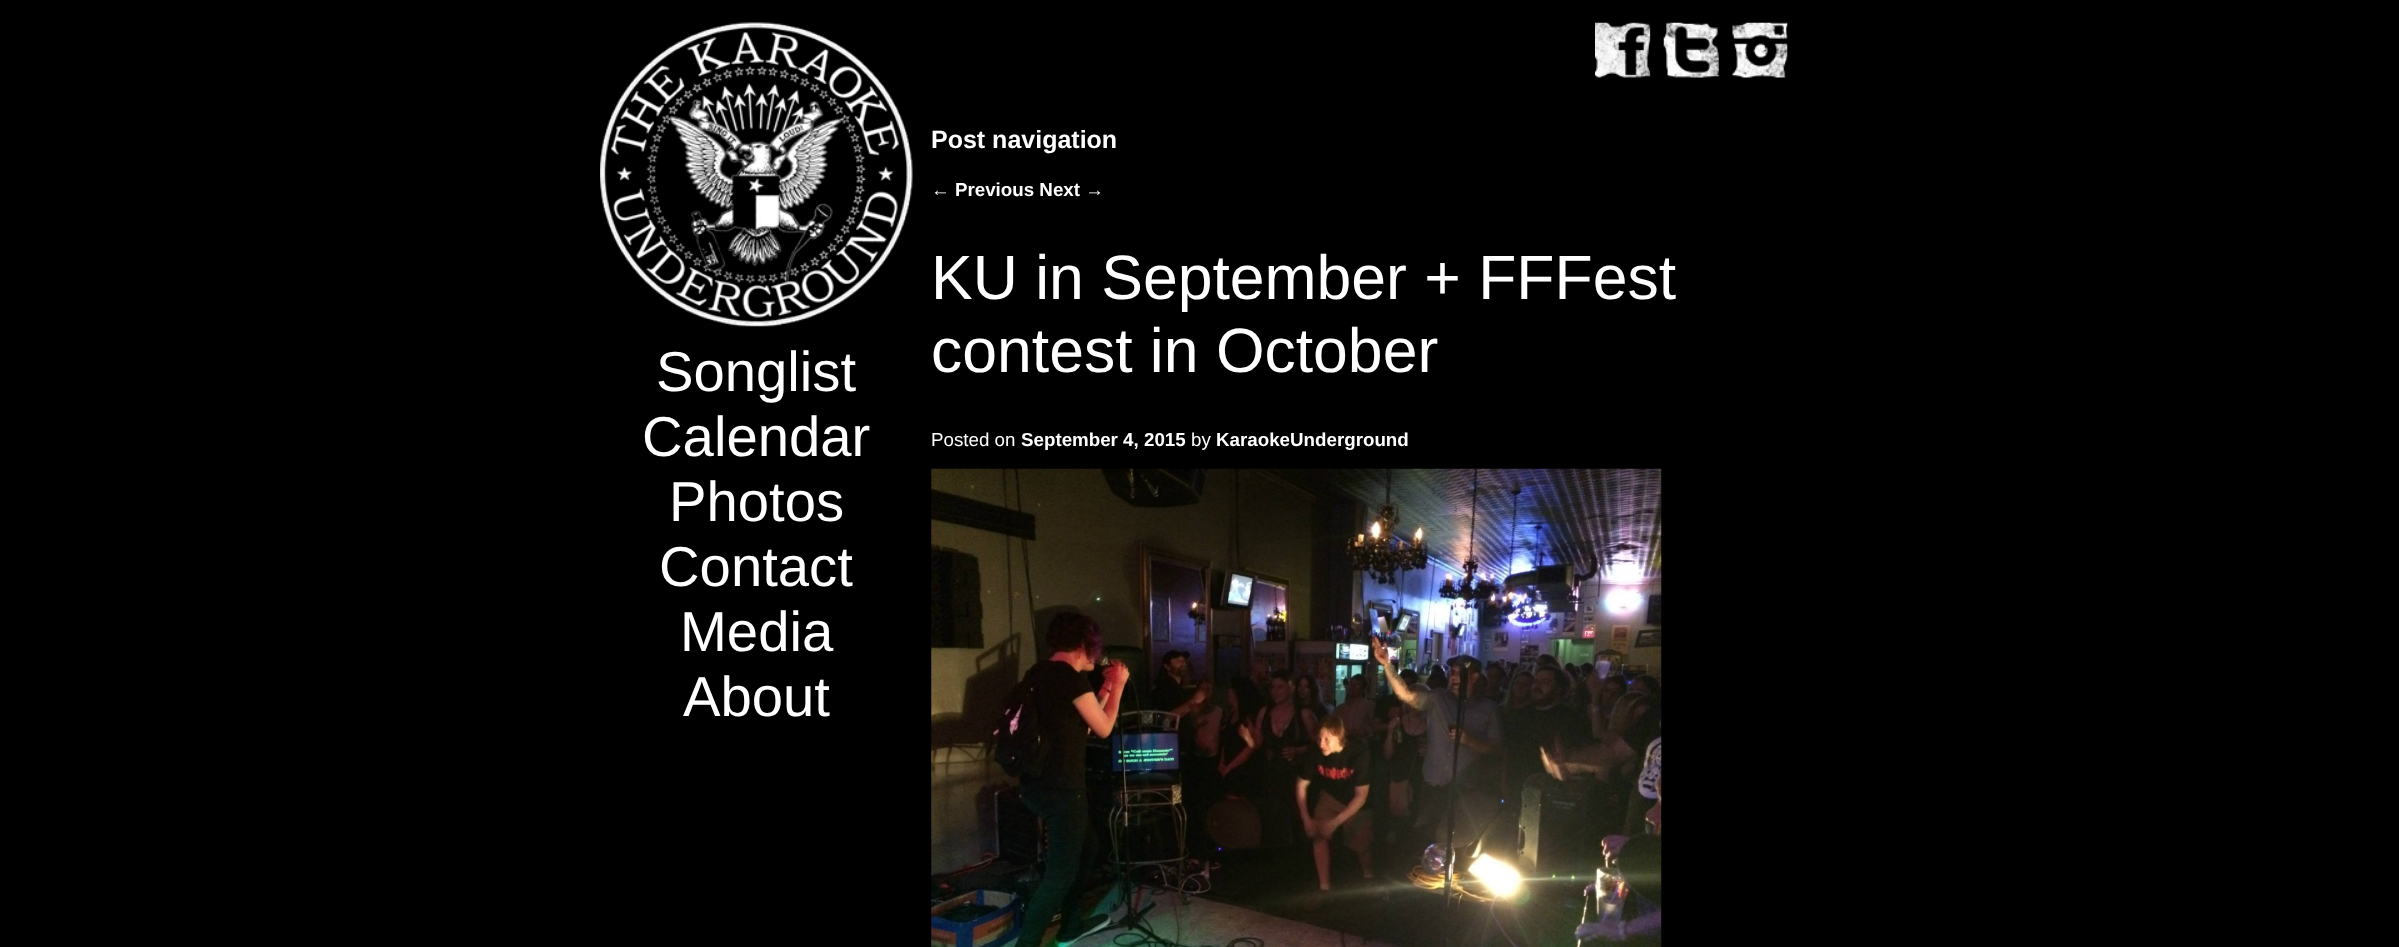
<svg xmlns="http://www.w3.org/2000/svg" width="2399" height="947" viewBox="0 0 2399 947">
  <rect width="100%" height="100%" fill="rgb(0,0,0)"/>
  <image x="1595" y="22" width="56" height="56" href="pic1.png"/>
  <image x="1663" y="22" width="56" height="56" href="pic2.png"/>
  <image x="1732" y="22" width="56" height="56" href="pic3.png"/>
  <text x="931" y="148" font-family="Liberation Sans" font-size="25" font-weight="bold" fill="rgb(255,255,255)">Post navigation</text>
  <text x="931" y="196" font-family="Liberation Sans" font-size="18.75" font-weight="bold" fill="rgb(255,255,255)">← Previous Next →</text>
  <g font-family="Liberation Sans" font-size="62.5" fill="rgb(255,255,255)">
    <text>
      <tspan x="931" y="299">KU in September + FFFest</tspan>
      <tspan x="931" y="372">contest in October</tspan>
    </text>
  </g>
  <text x="931" y="446" font-family="Liberation Sans" font-size="18.75" fill="rgb(255,255,255)">Posted on</text>
  <text x="1021" y="446" font-family="Liberation Sans" font-size="18.75" font-weight="bold" fill="rgb(255,255,255)">September 4, 2015</text>
  <text x="1191" y="446" font-family="Liberation Sans" font-size="18.75" fill="rgb(255,255,255)">by</text>
  <text x="1216" y="446" font-family="Liberation Sans" font-size="18.75" font-weight="bold" fill="rgb(255,255,255)">KaraokeUnderground</text>
  <image x="931" y="468" width="731" height="479" href="pic4.png"/>
  <image x="600" y="22" width="313" height="305" href="pic5.png"/>
  <g font-family="Liberation Sans" font-size="56.25" fill="rgb(255,255,255)">
    <text x="656" y="391">Songlist</text>
    <text x="642" y="456">Calendar</text>
    <text x="669" y="521">Photos</text>
    <text x="659" y="586">Contact</text>
    <text x="680" y="651">Media</text>
    <text x="683" y="716">About</text>
  </g>
</svg>
